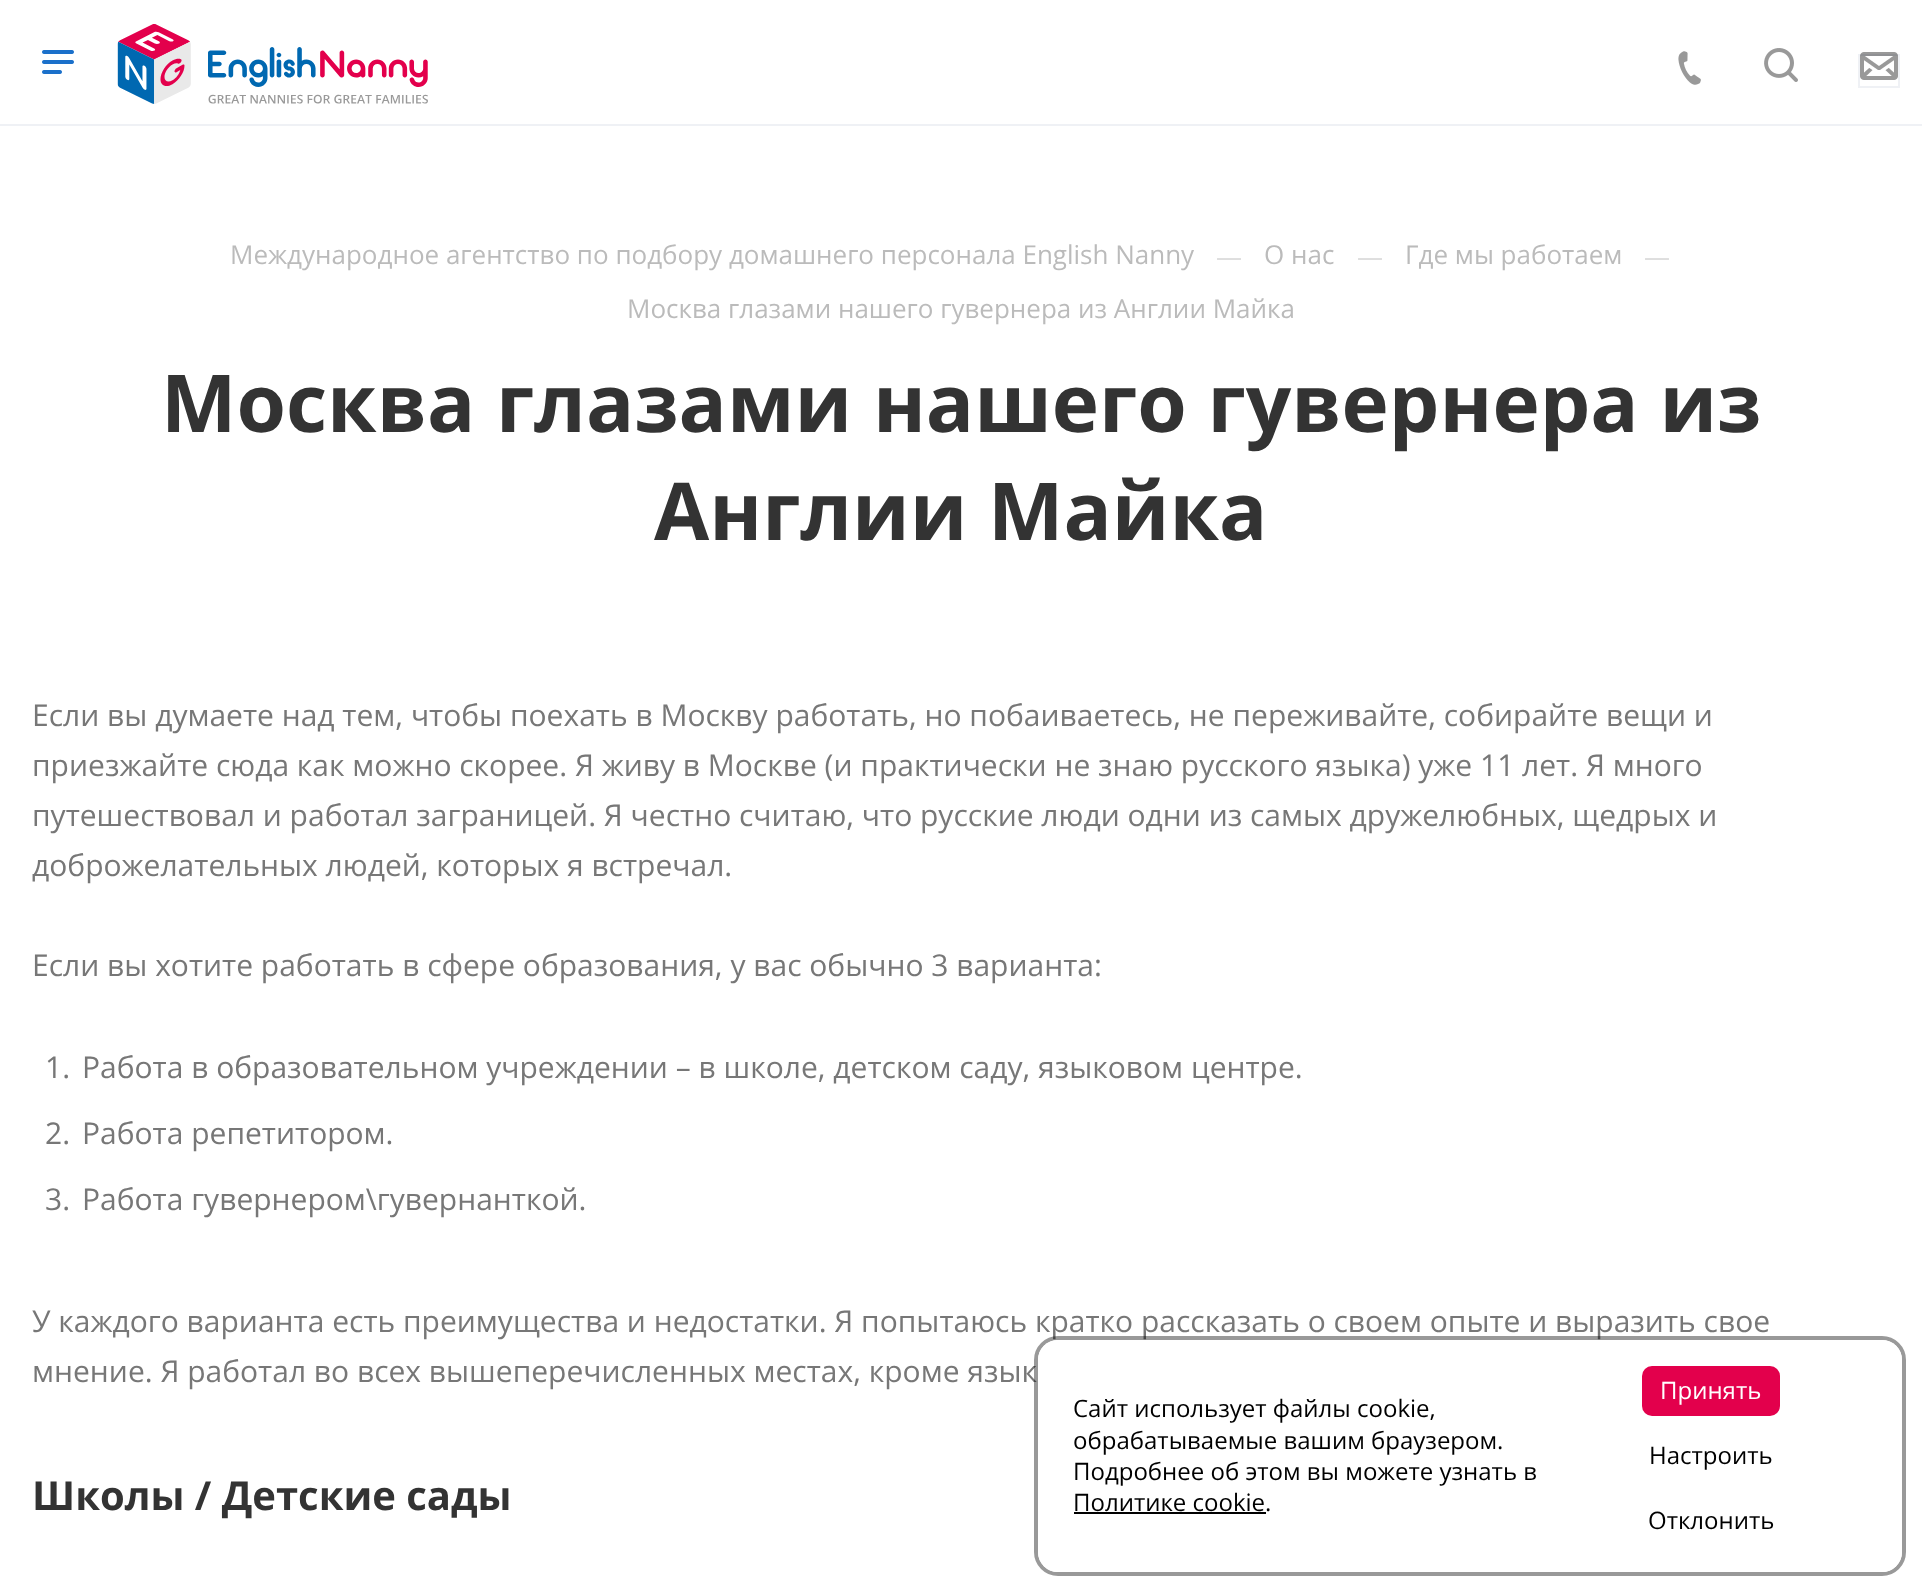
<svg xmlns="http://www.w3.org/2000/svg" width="1922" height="1591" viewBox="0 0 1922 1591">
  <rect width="100%" height="100%" fill="rgb(255,255,255)"/>
  <rect x="0" y="124" width="1922" height="2" fill="rgb(239,241,245)"/>
  <image x="42" y="50" width="32" height="24" href="pic1.png"/>
  <image x="117" y="24" width="311" height="80" href="pic2.png"/>
  <image x="1678" y="51" width="23" height="34" href="pic3.png"/>
  <image x="1764" y="48" width="34" height="34" href="pic4.png"/>
  <rect x="1859" y="55" width="40" height="32" fill="none" stroke="rgb(239,241,245)" stroke-width="2"/>
  <image x="1860" y="52" width="38" height="28" href="pic5.png"/>
  <text x="230" y="264" font-family="Open Sans" font-size="26" fill="rgb(187,187,187)">Международное агентство по подбору домашнего персонала English Nanny</text>
  <text x="1216" y="266" font-family="Open Sans" font-size="26" fill="rgb(221,221,221)">—</text>
  <text x="1264" y="264" font-family="Open Sans" font-size="26" fill="rgb(187,187,187)">О нас</text>
  <text x="1357" y="266" font-family="Open Sans" font-size="26" fill="rgb(221,221,221)">—</text>
  <text x="1405" y="264" font-family="Open Sans" font-size="26" fill="rgb(187,187,187)">Где мы работаем</text>
  <text x="1644" y="266" font-family="Open Sans" font-size="26" fill="rgb(221,221,221)">—</text>
  <text x="627" y="318" font-family="Open Sans" font-size="26" fill="rgb(187,187,187)">Москва глазами нашего гувернера из Англии Майка</text>
  <g font-family="Open Sans" font-size="80" font-weight="bold" fill="rgb(51,51,51)">
    <text x="161" y="432">Москва глазами нашего гувернера из</text>
    <text x="654" y="540">Англии Майка</text>
  </g>
  <g font-family="Open Sans" font-size="30" fill="rgb(119,119,119)">
    <text>
      <tspan x="32" y="726">Если вы думаете над тем, чтобы поехать в Москву работать, но побаиваетесь, не переживайте, собирайте вещи и</tspan>
      <tspan x="32" y="776">приезжайте сюда как можно скорее. Я живу в Москве (и практически не знаю русского языка) уже 11 лет. Я много</tspan>
      <tspan x="32" y="826">путешествовал и работал заграницей. Я честно считаю, что русские люди одни из самых дружелюбных, щедрых и</tspan>
      <tspan x="32" y="876">доброжелательных людей, которых я встречал.</tspan>
    </text>
    <text x="32" y="976">Если вы хотите работать в сфере образования, у вас обычно 3 варианта:</text>
    <text x="45" y="1078">1.</text>
    <text x="82" y="1078">Работа в образовательном учреждении – в школе, детском саду, языковом центре.</text>
    <text x="45" y="1144">2.</text>
    <text x="82" y="1144">Работа репетитором.</text>
    <text x="45" y="1210">3.</text>
    <text x="82" y="1210">Работа гувернером\гувернанткой.</text>
    <text>
      <tspan x="32" y="1332">У каждого варианта есть преимущества и недостатки. Я попытаюсь кратко рассказать о своем опыте и выразить свое</tspan>
      <tspan x="32" y="1382">мнение. Я работал во всех вышеперечисленных местах, кроме язык</tspan>
    </text>
  </g>
  <text x="32" y="1510" font-family="Open Sans" font-size="40" font-weight="bold" fill="rgb(51,51,51)">Школы / Детские сады</text>
  <rect x="1036" y="1338" width="868" height="236" rx="22" fill="none" stroke="rgba(0,0,0,0.4)" stroke-width="4"/>
  <rect x="1038" y="1340" width="864" height="232" rx="20" fill="rgb(255,255,255)"/>
  <g font-family="Open Sans" font-size="24" fill="rgb(0,0,0)">
    <text>
      <tspan x="1073" y="1417">Сайт использует файлы cookie,</tspan>
      <tspan x="1073" y="1449">обрабатываемые вашим браузером.</tspan>
      <tspan x="1073" y="1480">Подробнее об этом вы можете узнать в</tspan>
      <tspan x="1073" y="1511">Политике cookie.</tspan>
    </text>
  </g>
  <rect x="1074" y="1512" width="192" height="2" fill="rgb(0,0,0)"/>
  <rect x="1642" y="1366" width="138" height="50" rx="10" fill="rgb(227,0,76)"/>
  <text x="1660" y="1399" font-family="Open Sans" font-size="24" fill="rgb(255,255,255)">Принять</text>
  <g font-family="Open Sans" font-size="24" fill="rgb(0,0,0)">
    <text x="1649" y="1464">Настроить</text>
    <text x="1648" y="1529">Отклонить</text>
  </g>
</svg>
